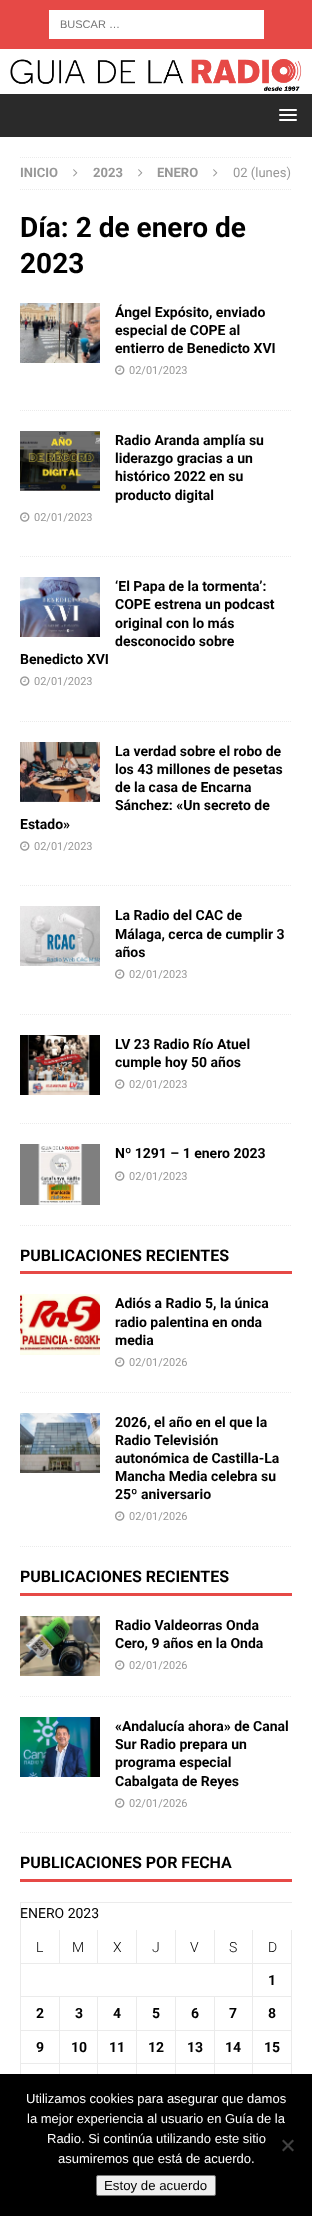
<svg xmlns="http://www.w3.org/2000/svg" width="312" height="2216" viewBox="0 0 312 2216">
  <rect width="100%" height="100%" fill="rgb(255,255,255)"/>
  <rect x="0" y="0" width="312" height="49" fill="rgb(230,73,70)"/>
  <rect x="49" y="10" width="215" height="29" fill="rgb(255,255,255)"/>
  <text x="60" y="28" font-family="Liberation Sans" font-size="11" fill="rgb(117,117,117)">BUSCAR …</text>
  <image x="10" y="59" width="292" height="32" href="pic1.png"/>
  <rect x="0" y="94" width="312" height="43" fill="rgb(42,42,42)"/>
  <rect x="279" y="109" width="18" height="2" rx="1" fill="rgb(255,255,255)"/>
  <rect x="279" y="114" width="18" height="2" rx="1" fill="rgb(255,255,255)"/>
  <rect x="279" y="119" width="18" height="2" rx="1" fill="rgb(255,255,255)"/>
  <path d="M20 157.5H292" fill="none" stroke="rgb(235,235,235)" stroke-dasharray="1 1"/>
  <path d="M20 189.5H292" fill="none" stroke="rgb(235,235,235)" stroke-dasharray="1 1"/>
  <text x="20" y="177" font-family="Roboto" font-size="13" font-weight="bold" fill="rgb(151,151,151)">INICIO</text>
  <image x="73" y="169" width="5" height="8" href="pic2.png"/>
  <text x="93" y="177" font-family="Roboto" font-size="13" font-weight="bold" fill="rgb(151,151,151)">2023</text>
  <image x="138" y="169" width="5" height="8" href="pic2.png"/>
  <text x="157" y="177" font-family="Roboto" font-size="13" font-weight="bold" fill="rgb(151,151,151)">ENERO</text>
  <image x="213" y="169" width="5" height="8" href="pic2.png"/>
  <text x="233" y="177" font-family="Roboto" font-size="13" fill="rgb(151,151,151)">02 (lunes)</text>
  <g font-family="Roboto" font-size="28" font-weight="bold" fill="rgb(0,0,0)">
    <text>
      <tspan x="20" y="237">Día: 2 de enero de</tspan>
      <tspan x="20" y="273">2023</tspan>
    </text>
  </g>
  <path d="M20 410.5H292" fill="none" stroke="rgb(235,235,235)" stroke-dasharray="1 1"/>
  <image x="20" y="303" width="80" height="60" href="pic3.png"/>
  <g font-family="Roboto" font-size="14" font-weight="bold" fill="rgb(0,0,0)">
    <text>
      <tspan x="115" y="317">Ángel Expósito, enviado</tspan>
      <tspan x="115" y="335">especial de COPE al</tspan>
      <tspan x="115" y="353">entierro de Benedicto XVI</tspan>
    </text>
  </g>
  <image x="115" y="365" width="10" height="10" href="pic4.png"/>
  <text x="129" y="374" font-family="Roboto" font-size="11" fill="rgb(151,151,151)">02/01/2023</text>
  <path d="M20 556.5H292" fill="none" stroke="rgb(235,235,235)" stroke-dasharray="1 1"/>
  <image x="20" y="431" width="80" height="60" href="pic5.png"/>
  <g font-family="Roboto" font-size="14" font-weight="bold" fill="rgb(0,0,0)">
    <text>
      <tspan x="115" y="445">Radio Aranda amplía su</tspan>
      <tspan x="115" y="463">liderazgo gracias a un</tspan>
      <tspan x="115" y="481">histórico 2022 en su</tspan>
      <tspan x="115" y="500">producto digital</tspan>
    </text>
  </g>
  <image x="20" y="512" width="10" height="10" href="pic4.png"/>
  <text x="34" y="521" font-family="Roboto" font-size="11" fill="rgb(151,151,151)">02/01/2023</text>
  <path d="M20 721.5H292" fill="none" stroke="rgb(235,235,235)" stroke-dasharray="1 1"/>
  <image x="20" y="577" width="80" height="60" href="pic6.png"/>
  <g font-family="Roboto" font-size="14" font-weight="bold" fill="rgb(0,0,0)">
    <text>
      <tspan x="115" y="591">‘El Papa de la tormenta’:</tspan>
      <tspan x="115" y="609">COPE estrena un podcast</tspan>
      <tspan x="115" y="628">original con lo más</tspan>
      <tspan x="115" y="646">desconocido sobre</tspan>
    </text>
    <text x="20" y="664">Benedicto XVI</text>
  </g>
  <image x="20" y="676" width="10" height="10" href="pic4.png"/>
  <text x="34" y="685" font-family="Roboto" font-size="11" fill="rgb(151,151,151)">02/01/2023</text>
  <path d="M20 885.5H292" fill="none" stroke="rgb(235,235,235)" stroke-dasharray="1 1"/>
  <image x="20" y="742" width="80" height="60" href="pic7.png"/>
  <g font-family="Roboto" font-size="14" font-weight="bold" fill="rgb(0,0,0)">
    <text>
      <tspan x="115" y="756">La verdad sobre el robo de</tspan>
      <tspan x="115" y="774">los 43 millones de pesetas</tspan>
      <tspan x="115" y="792">de la casa de Encarna</tspan>
      <tspan x="115" y="810">Sánchez: «Un secreto de</tspan>
    </text>
    <text x="20" y="829">Estado»</text>
  </g>
  <image x="20" y="841" width="10" height="10" href="pic4.png"/>
  <text x="34" y="850" font-family="Roboto" font-size="11" fill="rgb(151,151,151)">02/01/2023</text>
  <path d="M20 1014.5H292" fill="none" stroke="rgb(235,235,235)" stroke-dasharray="1 1"/>
  <image x="20" y="906" width="80" height="60" href="pic8.png"/>
  <g font-family="Roboto" font-size="14" font-weight="bold" fill="rgb(0,0,0)">
    <text>
      <tspan x="115" y="920">La Radio del CAC de</tspan>
      <tspan x="115" y="939">Málaga, cerca de cumplir 3</tspan>
      <tspan x="115" y="957">años</tspan>
    </text>
  </g>
  <image x="115" y="969" width="10" height="10" href="pic4.png"/>
  <text x="129" y="978" font-family="Roboto" font-size="11" fill="rgb(151,151,151)">02/01/2023</text>
  <path d="M20 1123.5H292" fill="none" stroke="rgb(235,235,235)" stroke-dasharray="1 1"/>
  <image x="20" y="1035" width="80" height="60" href="pic9.png"/>
  <g font-family="Roboto" font-size="14" font-weight="bold" fill="rgb(0,0,0)">
    <text>
      <tspan x="115" y="1049">LV 23 Radio Río Atuel</tspan>
      <tspan x="115" y="1067">cumple hoy 50 años</tspan>
    </text>
  </g>
  <image x="115" y="1079" width="10" height="10" href="pic4.png"/>
  <text x="129" y="1088" font-family="Roboto" font-size="11" fill="rgb(151,151,151)">02/01/2023</text>
  <path d="M20 1225.5H292" fill="none" stroke="rgb(235,235,235)" stroke-dasharray="1 1"/>
  <image x="20" y="1144" width="80" height="61" href="pic10.png"/>
  <text x="115" y="1158" font-family="Roboto" font-size="14" font-weight="bold" fill="rgb(0,0,0)">Nº 1291 – 1 enero 2023</text>
  <image x="115" y="1171" width="10" height="10" href="pic4.png"/>
  <text x="129" y="1180" font-family="Roboto" font-size="11" fill="rgb(151,151,151)">02/01/2023</text>
  <rect x="20" y="1271" width="272" height="3" fill="rgb(230,73,70)"/>
  <text x="20" y="1261" font-family="Roboto" font-size="16" font-weight="bold" fill="rgb(0,0,0)">PUBLICACIONES RECIENTES</text>
  <path d="M20 1392.5H292" fill="none" stroke="rgb(235,235,235)" stroke-dasharray="1 1"/>
  <image x="20" y="1294" width="80" height="61" href="pic11.png"/>
  <g font-family="Roboto" font-size="14" font-weight="bold" fill="rgb(0,0,0)">
    <text>
      <tspan x="115" y="1308">Adiós a Radio 5, la única</tspan>
      <tspan x="115" y="1327">radio palentina en onda</tspan>
      <tspan x="115" y="1345">media</tspan>
    </text>
  </g>
  <image x="115" y="1357" width="10" height="10" href="pic4.png"/>
  <text x="129" y="1366" font-family="Roboto" font-size="11" fill="rgb(151,151,151)">02/01/2026</text>
  <path d="M20 1546.5H292" fill="none" stroke="rgb(235,235,235)" stroke-dasharray="1 1"/>
  <image x="20" y="1413" width="80" height="60" href="pic12.png"/>
  <g font-family="Roboto" font-size="14" font-weight="bold" fill="rgb(0,0,0)">
    <text>
      <tspan x="115" y="1427">2026, el año en el que la</tspan>
      <tspan x="115" y="1445">Radio Televisión</tspan>
      <tspan x="115" y="1463">autonómica de Castilla-La</tspan>
      <tspan x="115" y="1481">Mancha Media celebra su</tspan>
      <tspan x="115" y="1499">25º aniversario</tspan>
    </text>
  </g>
  <image x="115" y="1511" width="10" height="10" href="pic4.png"/>
  <text x="129" y="1520" font-family="Roboto" font-size="11" fill="rgb(151,151,151)">02/01/2026</text>
  <rect x="20" y="1593" width="272" height="3" fill="rgb(230,73,70)"/>
  <text x="20" y="1582" font-family="Roboto" font-size="16" font-weight="bold" fill="rgb(0,0,0)">PUBLICACIONES RECIENTES</text>
  <path d="M20 1696.5H292" fill="none" stroke="rgb(235,235,235)" stroke-dasharray="1 1"/>
  <image x="20" y="1616" width="80" height="60" href="pic13.png"/>
  <g font-family="Roboto" font-size="14" font-weight="bold" fill="rgb(0,0,0)">
    <text>
      <tspan x="115" y="1630">Radio Valdeorras Onda</tspan>
      <tspan x="115" y="1648">Cero, 9 años en la Onda</tspan>
    </text>
  </g>
  <image x="115" y="1660" width="10" height="10" href="pic4.png"/>
  <text x="129" y="1669" font-family="Roboto" font-size="11" fill="rgb(151,151,151)">02/01/2026</text>
  <path d="M20 1832.5H292" fill="none" stroke="rgb(235,235,235)" stroke-dasharray="1 1"/>
  <image x="20" y="1717" width="80" height="60" href="pic14.png"/>
  <g font-family="Roboto" font-size="14" font-weight="bold" fill="rgb(0,0,0)">
    <text>
      <tspan x="115" y="1731">«Andalucía ahora» de Canal</tspan>
      <tspan x="115" y="1749">Sur Radio prepara un</tspan>
      <tspan x="115" y="1767">programa especial</tspan>
      <tspan x="115" y="1786">Cabalgata de Reyes</tspan>
    </text>
  </g>
  <image x="115" y="1798" width="10" height="10" href="pic4.png"/>
  <text x="129" y="1807" font-family="Roboto" font-size="11" fill="rgb(151,151,151)">02/01/2026</text>
  <rect x="20" y="1879" width="272" height="3" fill="rgb(230,73,70)"/>
  <text x="20" y="1868" font-family="Roboto" font-size="16" font-weight="bold" fill="rgb(0,0,0)">PUBLICACIONES POR FECHA</text>
  <rect x="20" y="1902" width="272" height="1" fill="rgb(235,235,235)"/>
  <rect x="20" y="1902" width="1" height="172" fill="rgb(235,235,235)"/>
  <text x="20" y="1918" font-family="Roboto" font-size="14" fill="rgb(0,0,0)">ENERO 2023</text>
  <rect x="291" y="1930" width="1" height="144" fill="rgb(235,235,235)"/>
  <rect x="252" y="2063" width="1" height="11" fill="rgb(235,235,235)"/>
  <rect x="252" y="2063" width="40" height="1" fill="rgb(235,235,235)"/>
  <rect x="252" y="2030" width="1" height="34" fill="rgb(235,235,235)"/>
  <rect x="252" y="2030" width="40" height="1" fill="rgb(235,235,235)"/>
  <rect x="252" y="1996" width="1" height="35" fill="rgb(235,235,235)"/>
  <rect x="252" y="1996" width="40" height="1" fill="rgb(235,235,235)"/>
  <rect x="252" y="1963" width="1" height="34" fill="rgb(235,235,235)"/>
  <rect x="252" y="1963" width="40" height="1" fill="rgb(235,235,235)"/>
  <rect x="252" y="1930" width="1" height="34" fill="rgb(235,235,235)"/>
  <rect x="214" y="1963" width="39" height="1" fill="rgb(235,235,235)"/>
  <rect x="214" y="1930" width="1" height="34" fill="rgb(235,235,235)"/>
  <rect x="175" y="1963" width="40" height="1" fill="rgb(235,235,235)"/>
  <rect x="175" y="1930" width="1" height="34" fill="rgb(235,235,235)"/>
  <rect x="136" y="1963" width="40" height="1" fill="rgb(235,235,235)"/>
  <rect x="136" y="1930" width="1" height="34" fill="rgb(235,235,235)"/>
  <rect x="97" y="1963" width="40" height="1" fill="rgb(235,235,235)"/>
  <rect x="97" y="1930" width="1" height="34" fill="rgb(235,235,235)"/>
  <rect x="59" y="1963" width="39" height="1" fill="rgb(235,235,235)"/>
  <rect x="59" y="1930" width="1" height="34" fill="rgb(235,235,235)"/>
  <rect x="20" y="1963" width="40" height="1" fill="rgb(235,235,235)"/>
  <g font-family="Roboto" font-size="14" font-weight="300" fill="rgb(0,0,0)">
    <text x="36" y="1952">L</text>
    <text x="72" y="1952">M</text>
    <text x="113" y="1952">X</text>
    <text x="152" y="1952">J</text>
    <text x="190" y="1952">V</text>
    <text x="229" y="1952">S</text>
    <text x="268" y="1952">D</text>
  </g>
  <rect x="59" y="2063" width="1" height="11" fill="rgb(235,235,235)"/>
  <rect x="97" y="2063" width="1" height="11" fill="rgb(235,235,235)"/>
  <rect x="136" y="2063" width="1" height="11" fill="rgb(235,235,235)"/>
  <rect x="175" y="2063" width="1" height="11" fill="rgb(235,235,235)"/>
  <rect x="214" y="2063" width="1" height="11" fill="rgb(235,235,235)"/>
  <rect x="214" y="2063" width="39" height="1" fill="rgb(235,235,235)"/>
  <rect x="214" y="2030" width="1" height="34" fill="rgb(235,235,235)"/>
  <rect x="214" y="2030" width="39" height="1" fill="rgb(235,235,235)"/>
  <rect x="214" y="1996" width="1" height="35" fill="rgb(235,235,235)"/>
  <rect x="175" y="2063" width="40" height="1" fill="rgb(235,235,235)"/>
  <rect x="175" y="2030" width="1" height="34" fill="rgb(235,235,235)"/>
  <rect x="175" y="2030" width="40" height="1" fill="rgb(235,235,235)"/>
  <rect x="175" y="1996" width="1" height="35" fill="rgb(235,235,235)"/>
  <rect x="136" y="2063" width="40" height="1" fill="rgb(235,235,235)"/>
  <rect x="136" y="2030" width="1" height="34" fill="rgb(235,235,235)"/>
  <rect x="136" y="2030" width="40" height="1" fill="rgb(235,235,235)"/>
  <rect x="136" y="1996" width="1" height="35" fill="rgb(235,235,235)"/>
  <rect x="97" y="2063" width="40" height="1" fill="rgb(235,235,235)"/>
  <rect x="97" y="2030" width="1" height="34" fill="rgb(235,235,235)"/>
  <rect x="97" y="2030" width="40" height="1" fill="rgb(235,235,235)"/>
  <rect x="97" y="1996" width="1" height="35" fill="rgb(235,235,235)"/>
  <rect x="59" y="2063" width="39" height="1" fill="rgb(235,235,235)"/>
  <rect x="59" y="2030" width="1" height="34" fill="rgb(235,235,235)"/>
  <rect x="59" y="2030" width="39" height="1" fill="rgb(235,235,235)"/>
  <rect x="59" y="1996" width="1" height="35" fill="rgb(235,235,235)"/>
  <rect x="20" y="1996" width="233" height="1" fill="rgb(235,235,235)"/>
  <text x="268" y="1985" font-family="Roboto" font-size="14" font-weight="bold" fill="rgb(0,0,0)">1</text>
  <rect x="20" y="2030" width="40" height="1" fill="rgb(235,235,235)"/>
  <g font-family="Roboto" font-size="14" font-weight="bold" fill="rgb(0,0,0)">
    <text x="36" y="2018">2</text>
    <text x="75" y="2018">3</text>
    <text x="113" y="2018">4</text>
    <text x="152" y="2018">5</text>
    <text x="191" y="2018">6</text>
    <text x="229" y="2018">7</text>
    <text x="268" y="2018">8</text>
  </g>
  <rect x="20" y="2063" width="40" height="1" fill="rgb(235,235,235)"/>
  <g font-family="Roboto" font-size="14" font-weight="bold" fill="rgb(0,0,0)">
    <text x="36" y="2052">9</text>
    <text x="71" y="2052">10</text>
    <text x="109" y="2052">11</text>
    <text x="148" y="2052">12</text>
    <text x="187" y="2052">13</text>
    <text x="225" y="2052">14</text>
    <text x="264" y="2052">15</text>
  </g>
  <rect x="0" y="2074" width="312" height="142" fill="rgb(0,0,0)"/>
  <g font-family="Liberation Sans" font-size="13" fill="rgb(255,255,255)">
    <text x="26" y="2103">Utilizamos cookies para asegurar que damos</text>
    <text x="27" y="2123">la mejor experiencia al usuario en Guía de la</text>
    <text x="47" y="2143">Radio. Si continúa utilizando este sitio</text>
    <text x="58" y="2163">asumiremos que está de acuerdo.</text>
  </g>
  <path d="M292.5 2139.5L294 2141L283.5 2151.5L282 2150Z" fill="rgb(64,64,64)"/>
  <path d="M282 2141L283.5 2139.5L294 2150L292.5 2151.5Z" fill="rgb(64,64,64)"/>
  <rect x="96.5" y="2175.5" width="119" height="20" rx="1.5" fill="rgb(239,239,239)" stroke="rgb(118,118,118)"/>
  <text x="104" y="2190" font-family="Liberation Sans" font-size="13.25" fill="rgb(0,0,0)">Estoy de acuerdo</text>
</svg>
